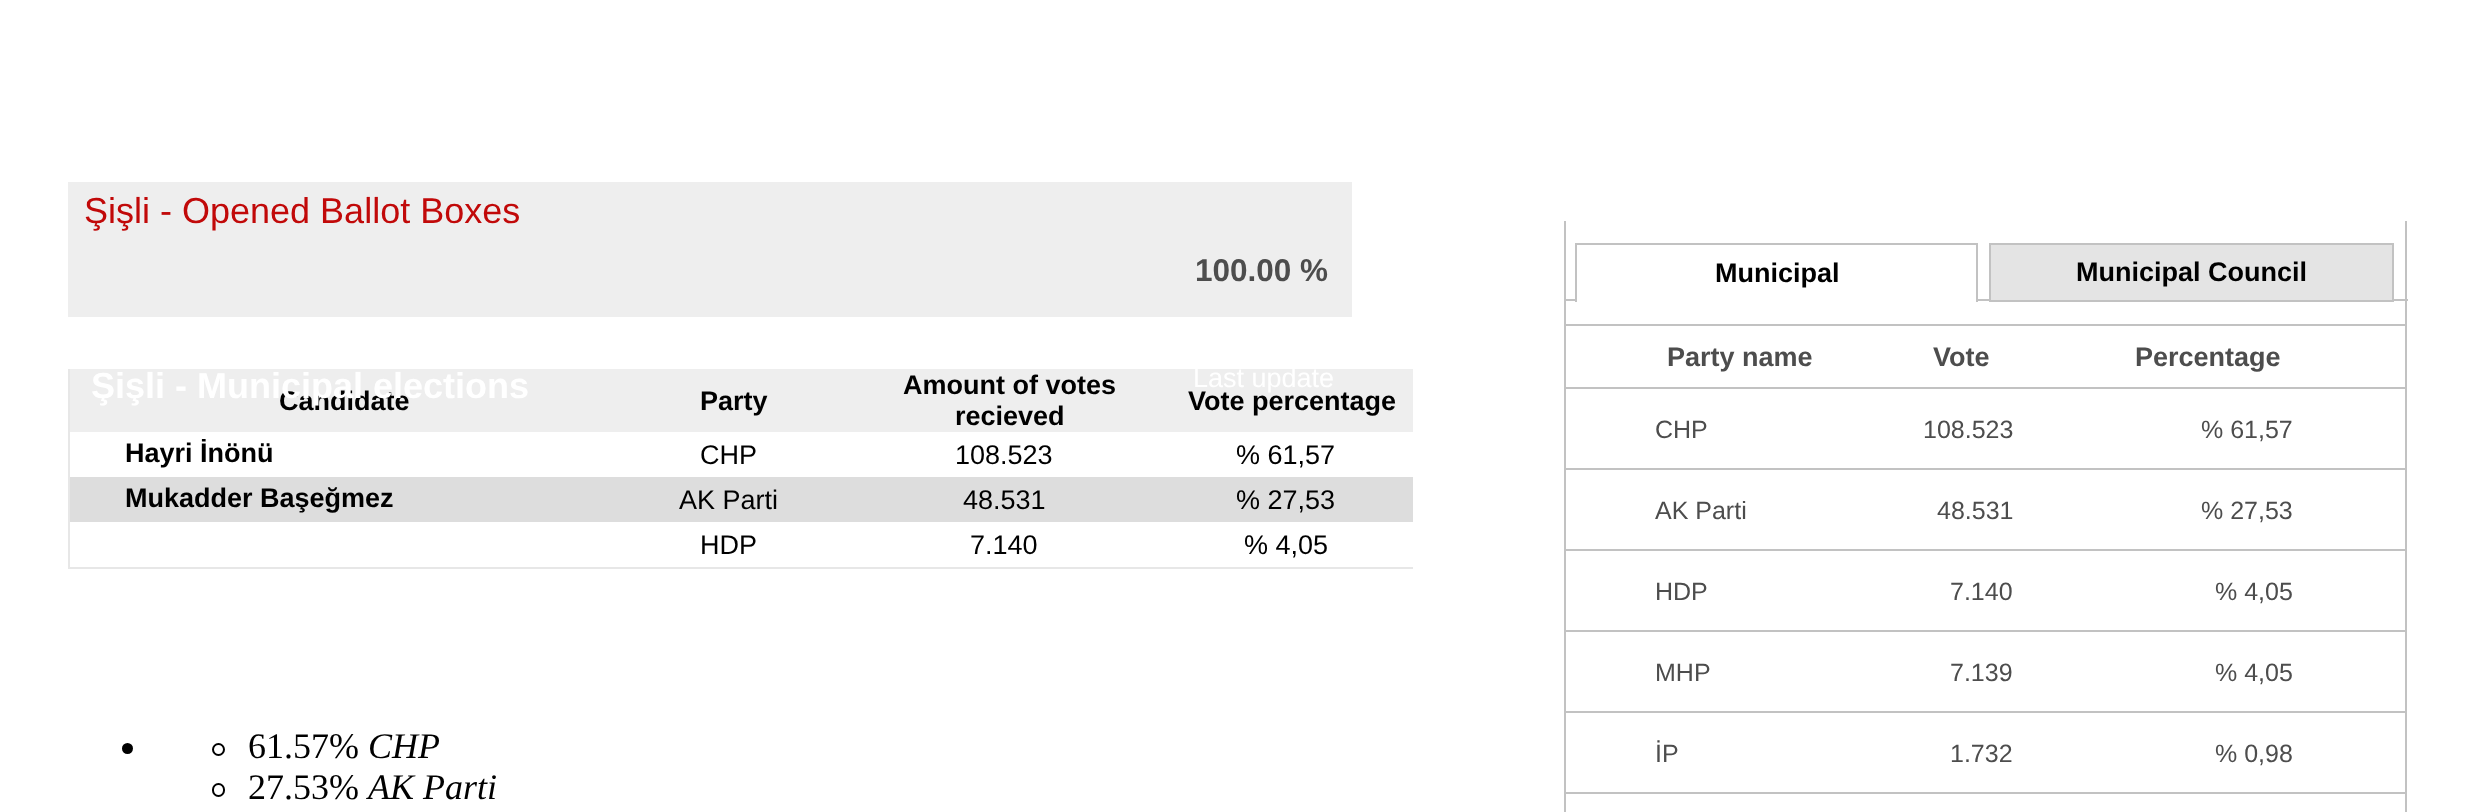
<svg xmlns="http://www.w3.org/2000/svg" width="2486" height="812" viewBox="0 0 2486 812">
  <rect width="100%" height="100%" fill="rgb(255,255,255)"/>
  <rect x="68" y="182" width="1284" height="135" fill="rgb(238,238,238)"/>
  <text x="84" y="223" font-family="Liberation Sans" font-size="36" fill="rgb(193,9,9)">Şişli - Opened Ballot Boxes</text>
  <text x="1195" y="281" font-family="Liberation Sans" font-size="31.5" font-weight="bold" fill="rgb(77,77,77)">100.00 %</text>
  <rect x="70" y="369" width="1343" height="63" fill="rgb(238,238,238)"/>
  <text x="279" y="410" font-family="Liberation Sans" font-size="27" font-weight="bold" fill="rgb(0,0,0)">Candidate</text>
  <text x="91" y="398" font-family="Liberation Sans" font-size="36" font-weight="bold" fill="rgb(255,255,255)">Şişli - Municipal elections</text>
  <text x="1193" y="387" font-family="Liberation Sans" font-size="27" fill="rgb(255,255,255)">Last update</text>
  <rect x="68" y="567" width="1345" height="2" fill="rgb(231,231,231)"/>
  <rect x="68" y="369" width="2" height="200" fill="rgb(231,231,231)"/>
  <g font-family="Liberation Sans" font-size="27" font-weight="bold" fill="rgb(0,0,0)">
    <text x="700" y="410">Party</text>
    <text x="903" y="394">Amount of votes</text>
    <text x="955" y="425">recieved</text>
    <text x="1188" y="410">Vote percentage</text>
    <text x="125" y="462">Hayri İnönü</text>
  </g>
  <g font-family="Liberation Sans" font-size="27" fill="rgb(0,0,0)">
    <text x="700" y="464">CHP</text>
    <text x="955" y="464">108.523</text>
    <text x="1236" y="464">% 61,57</text>
  </g>
  <rect x="70" y="477" width="1343" height="45" fill="rgb(221,221,221)"/>
  <text x="125" y="507" font-family="Liberation Sans" font-size="27" font-weight="bold" fill="rgb(0,0,0)">Mukadder Başeğmez</text>
  <g font-family="Liberation Sans" font-size="27" fill="rgb(0,0,0)">
    <text x="679" y="509">AK Parti</text>
    <text x="963" y="509">48.531</text>
    <text x="1236" y="509">% 27,53</text>
    <text x="700" y="554">HDP</text>
    <text x="970" y="554">7.140</text>
    <text x="1244" y="554">% 4,05</text>
  </g>
  <circle cx="127.5" cy="748.5" r="5.5" fill="rgb(0,0,0)"/>
  <circle cx="218.5" cy="749.5" r="5.5" fill="none" stroke="rgb(0,0,0)" stroke-width="2"/>
  <text x="248" y="758" font-family="Liberation Serif" font-size="36" fill="rgb(0,0,0)">61.57%</text>
  <text x="368" y="758" font-family="Liberation Serif" font-size="36" font-style="italic" fill="rgb(0,0,0)">CHP</text>
  <rect x="213" y="784" width="11" height="12" rx="5.5" fill="none" stroke="rgb(0,0,0)" stroke-width="2"/>
  <text x="248" y="799" font-family="Liberation Serif" font-size="36" fill="rgb(0,0,0)">27.53%</text>
  <text x="368" y="799" font-family="Liberation Serif" font-size="36" font-style="italic" fill="rgb(0,0,0)">AK Parti</text>
  <rect x="2405" y="221" width="2" height="591" fill="rgb(194,194,194)"/>
  <rect x="1564" y="221" width="2" height="22" fill="rgb(194,194,194)"/>
  <rect x="1564" y="299" width="11" height="2" fill="rgb(194,194,194)"/>
  <rect x="1564" y="243" width="2" height="569" fill="rgb(194,194,194)"/>
  <rect x="1575" y="243" width="403" height="2" fill="rgb(194,194,194)"/>
  <rect x="1976" y="243" width="2" height="59" fill="rgb(194,194,194)"/>
  <rect x="1575" y="243" width="2" height="59" fill="rgb(194,194,194)"/>
  <text x="1715" y="282" font-family="Liberation Sans" font-size="27" font-weight="bold" fill="rgb(0,0,0)">Municipal</text>
  <rect x="1990" y="244" width="403" height="57" fill="rgb(228,228,228)" stroke="rgb(194,194,194)" stroke-width="2"/>
  <text x="2076" y="281" font-family="Liberation Sans" font-size="27" font-weight="bold" fill="rgb(0,0,0)">Municipal Council</text>
  <rect x="1978" y="299" width="11" height="2" fill="rgb(194,194,194)"/>
  <rect x="2394" y="299" width="14" height="2" fill="rgb(194,194,194)"/>
  <rect x="1566" y="324" width="839" height="2" fill="rgb(194,194,194)"/>
  <g font-family="Liberation Sans" font-size="27" font-weight="bold" fill="rgb(77,77,77)">
    <text x="1667" y="366">Party name</text>
    <text x="1933" y="366">Vote</text>
    <text x="2135" y="366">Percentage</text>
  </g>
  <rect x="1566" y="387" width="839" height="2" fill="rgb(194,194,194)"/>
  <g font-family="Liberation Sans" font-size="25" fill="rgb(77,77,77)">
    <text x="1655" y="438">CHP</text>
    <text x="1923" y="438">108.523</text>
    <text x="2201" y="438">% 61,57</text>
  </g>
  <rect x="1566" y="468" width="839" height="2" fill="rgb(194,194,194)"/>
  <g font-family="Liberation Sans" font-size="25" fill="rgb(77,77,77)">
    <text x="1655" y="519">AK Parti</text>
    <text x="1937" y="519">48.531</text>
    <text x="2201" y="519">% 27,53</text>
  </g>
  <rect x="1566" y="549" width="839" height="2" fill="rgb(194,194,194)"/>
  <g font-family="Liberation Sans" font-size="25" fill="rgb(77,77,77)">
    <text x="1655" y="600">HDP</text>
    <text x="1950" y="600">7.140</text>
    <text x="2215" y="600">% 4,05</text>
  </g>
  <rect x="1566" y="630" width="839" height="2" fill="rgb(194,194,194)"/>
  <g font-family="Liberation Sans" font-size="25" fill="rgb(77,77,77)">
    <text x="1655" y="681">MHP</text>
    <text x="1950" y="681">7.139</text>
    <text x="2215" y="681">% 4,05</text>
  </g>
  <rect x="1566" y="711" width="839" height="2" fill="rgb(194,194,194)"/>
  <g font-family="Liberation Sans" font-size="25" fill="rgb(77,77,77)">
    <text x="1655" y="762">İP</text>
    <text x="1950" y="762">1.732</text>
    <text x="2215" y="762">% 0,98</text>
  </g>
  <rect x="1566" y="792" width="839" height="2" fill="rgb(194,194,194)"/>
</svg>
